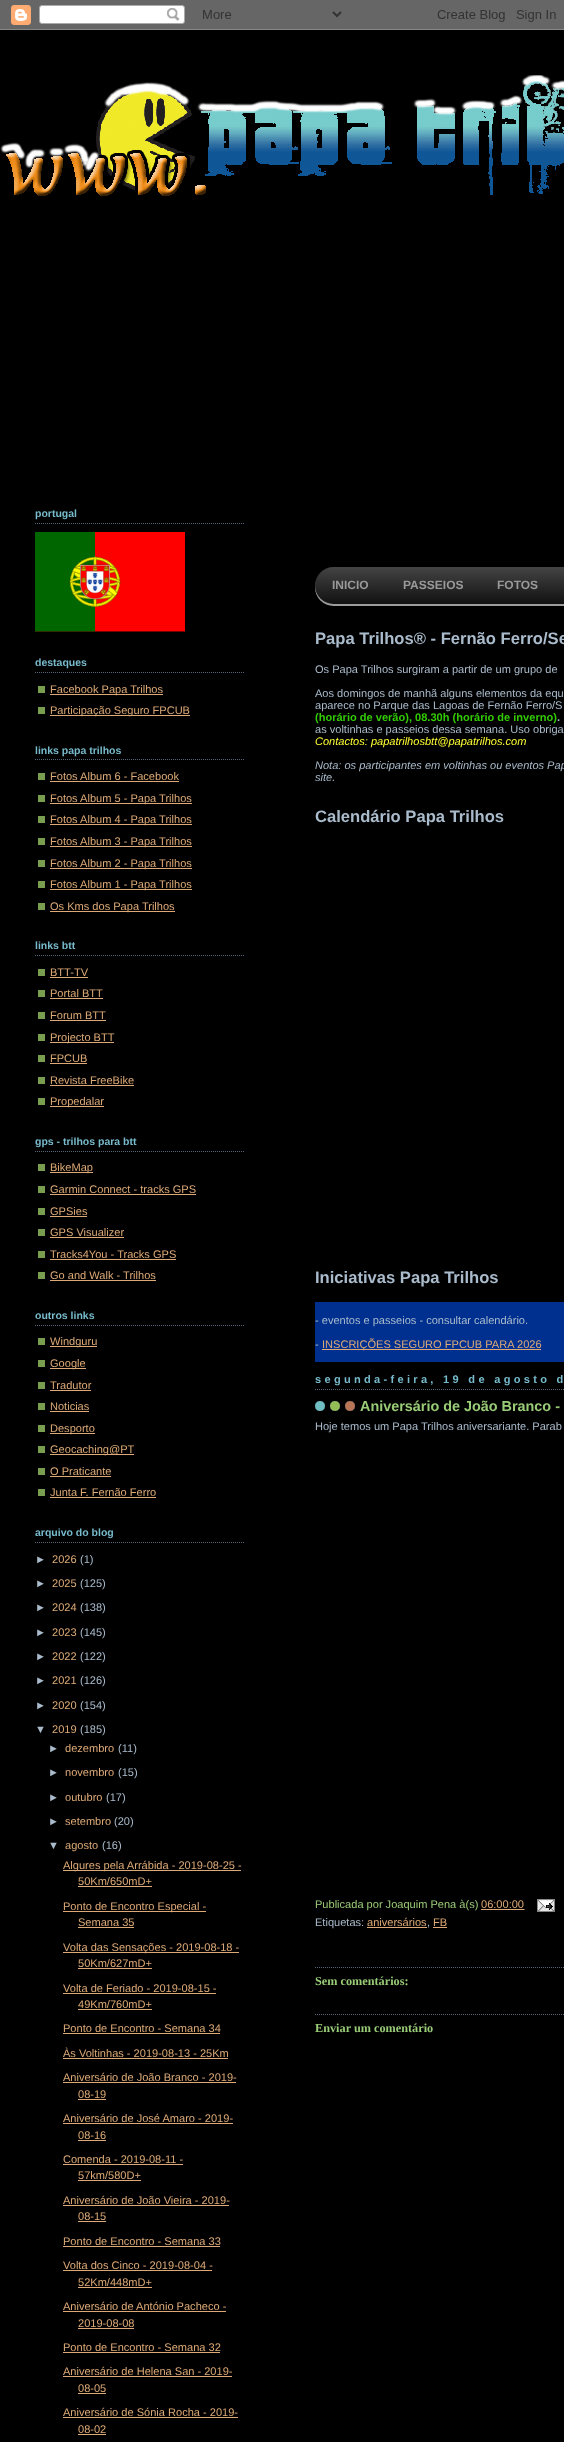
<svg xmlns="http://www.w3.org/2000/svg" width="564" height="2442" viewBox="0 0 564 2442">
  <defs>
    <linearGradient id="g1" gradientUnits="userSpaceOnUse" x1="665" y1="567" x2="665" y2="604"><stop offset="0" stop-color="rgb(68,68,68)"/><stop offset="1" stop-color="rgb(17,17,17)"/></linearGradient>
  </defs>
  <rect width="100%" height="100%" fill="rgb(0,0,0)"/>
  <image x="0" y="0" width="564" height="30" href="pic1.png"/>
  <image x="0" y="75" width="564" height="121" href="pic2.png"/>
  <path d="M35 523.5H245" fill="none" stroke="rgb(85,102,119)" stroke-dasharray="1 1"/>
  <text x="35" y="517" font-family="Liberation Sans" font-size="10.5" font-weight="bold" fill="rgb(119,187,204)">portugal</text>
  <image x="35" y="532" width="150" height="100" href="pic3.png"/>
  <path d="M35 672.5H245" fill="none" stroke="rgb(85,102,119)" stroke-dasharray="1 1"/>
  <text x="35" y="666" font-family="Liberation Sans" font-size="10.5" font-weight="bold" fill="rgb(119,187,204)">destaques</text>
  <rect x="38" y="686" width="7" height="7" fill="rgb(122,158,80)"/>
  <rect x="50" y="694" width="113" height="1" fill="rgb(221,170,119)"/>
  <text x="50" y="693" font-family="Liberation Sans" font-size="11.05" fill="rgb(221,170,119)">Facebook Papa Trilhos</text>
  <rect x="38" y="707" width="7" height="7" fill="rgb(122,158,80)"/>
  <rect x="50" y="715" width="140" height="1" fill="rgb(221,170,119)"/>
  <text x="50" y="714" font-family="Liberation Sans" font-size="11.05" fill="rgb(221,170,119)">Participação Seguro FPCUB</text>
  <path d="M35 759.5H245" fill="none" stroke="rgb(85,102,119)" stroke-dasharray="1 1"/>
  <text x="35" y="754" font-family="Liberation Sans" font-size="10.5" font-weight="bold" fill="rgb(119,187,204)">links papa trilhos</text>
  <rect x="38" y="773" width="7" height="7" fill="rgb(122,158,80)"/>
  <text x="50" y="780" font-family="Liberation Sans" font-size="11.05" fill="rgb(221,170,119)">Fotos Album 6 - Facebook</text>
  <rect x="50" y="781" width="129" height="1" fill="rgb(221,170,119)"/>
  <rect x="38" y="795" width="7" height="7" fill="rgb(122,158,80)"/>
  <rect x="50" y="803" width="142" height="1" fill="rgb(221,170,119)"/>
  <text x="50" y="802" font-family="Liberation Sans" font-size="11.05" fill="rgb(221,170,119)">Fotos Album 5 - Papa Trilhos</text>
  <rect x="38" y="816" width="7" height="7" fill="rgb(122,158,80)"/>
  <rect x="50" y="824" width="142" height="1" fill="rgb(221,170,119)"/>
  <text x="50" y="823" font-family="Liberation Sans" font-size="11.05" fill="rgb(221,170,119)">Fotos Album 4 - Papa Trilhos</text>
  <rect x="38" y="838" width="7" height="7" fill="rgb(122,158,80)"/>
  <rect x="50" y="846" width="142" height="1" fill="rgb(221,170,119)"/>
  <text x="50" y="845" font-family="Liberation Sans" font-size="11.05" fill="rgb(221,170,119)">Fotos Album 3 - Papa Trilhos</text>
  <rect x="38" y="860" width="7" height="7" fill="rgb(122,158,80)"/>
  <rect x="50" y="868" width="142" height="1" fill="rgb(221,170,119)"/>
  <text x="50" y="867" font-family="Liberation Sans" font-size="11.05" fill="rgb(221,170,119)">Fotos Album 2 - Papa Trilhos</text>
  <rect x="38" y="881" width="7" height="7" fill="rgb(122,158,80)"/>
  <rect x="50" y="889" width="142" height="1" fill="rgb(221,170,119)"/>
  <text x="50" y="888" font-family="Liberation Sans" font-size="11.05" fill="rgb(221,170,119)">Fotos Album 1 - Papa Trilhos</text>
  <rect x="38" y="903" width="7" height="7" fill="rgb(122,158,80)"/>
  <rect x="50" y="911" width="125" height="1" fill="rgb(221,170,119)"/>
  <text x="50" y="910" font-family="Liberation Sans" font-size="11.05" fill="rgb(221,170,119)">Os Kms dos Papa Trilhos</text>
  <path d="M35 955.5H245" fill="none" stroke="rgb(85,102,119)" stroke-dasharray="1 1"/>
  <text x="35" y="949" font-family="Liberation Sans" font-size="10.5" font-weight="bold" fill="rgb(119,187,204)">links btt</text>
  <rect x="38" y="969" width="7" height="7" fill="rgb(122,158,80)"/>
  <text x="50" y="976" font-family="Liberation Sans" font-size="11.05" fill="rgb(221,170,119)">BTT-TV</text>
  <rect x="50" y="977" width="38" height="1" fill="rgb(221,170,119)"/>
  <rect x="38" y="990" width="7" height="7" fill="rgb(122,158,80)"/>
  <text x="50" y="997" font-family="Liberation Sans" font-size="11.05" fill="rgb(221,170,119)">Portal BTT</text>
  <rect x="50" y="998" width="53" height="1" fill="rgb(221,170,119)"/>
  <rect x="38" y="1012" width="7" height="7" fill="rgb(122,158,80)"/>
  <text x="50" y="1019" font-family="Liberation Sans" font-size="11.05" fill="rgb(221,170,119)">Forum BTT</text>
  <rect x="50" y="1020" width="56" height="1" fill="rgb(221,170,119)"/>
  <rect x="38" y="1034" width="7" height="7" fill="rgb(122,158,80)"/>
  <rect x="50" y="1042" width="64" height="1" fill="rgb(221,170,119)"/>
  <text x="50" y="1041" font-family="Liberation Sans" font-size="11.05" fill="rgb(221,170,119)">Projecto BTT</text>
  <rect x="38" y="1055" width="7" height="7" fill="rgb(122,158,80)"/>
  <text x="50" y="1062" font-family="Liberation Sans" font-size="11.05" fill="rgb(221,170,119)">FPCUB</text>
  <rect x="50" y="1063" width="37" height="1" fill="rgb(221,170,119)"/>
  <rect x="38" y="1077" width="7" height="7" fill="rgb(122,158,80)"/>
  <text x="50" y="1084" font-family="Liberation Sans" font-size="11.05" fill="rgb(221,170,119)">Revista FreeBike</text>
  <rect x="50" y="1085" width="84" height="1" fill="rgb(221,170,119)"/>
  <rect x="38" y="1098" width="7" height="7" fill="rgb(122,158,80)"/>
  <rect x="50" y="1106" width="54" height="1" fill="rgb(221,170,119)"/>
  <text x="50" y="1105" font-family="Liberation Sans" font-size="11.05" fill="rgb(221,170,119)">Propedalar</text>
  <path d="M35 1151.5H245" fill="none" stroke="rgb(85,102,119)" stroke-dasharray="1 1"/>
  <text x="35" y="1145" font-family="Liberation Sans" font-size="10.5" font-weight="bold" fill="rgb(119,187,204)">gps - trilhos para btt</text>
  <rect x="38" y="1164" width="7" height="7" fill="rgb(122,158,80)"/>
  <rect x="50" y="1172" width="43" height="1" fill="rgb(221,170,119)"/>
  <text x="50" y="1171" font-family="Liberation Sans" font-size="11.05" fill="rgb(221,170,119)">BikeMap</text>
  <rect x="38" y="1186" width="7" height="7" fill="rgb(122,158,80)"/>
  <text x="50" y="1193" font-family="Liberation Sans" font-size="11.05" fill="rgb(221,170,119)">Garmin Connect - tracks GPS</text>
  <rect x="50" y="1194" width="146" height="1" fill="rgb(221,170,119)"/>
  <rect x="38" y="1208" width="7" height="7" fill="rgb(122,158,80)"/>
  <text x="50" y="1215" font-family="Liberation Sans" font-size="11.05" fill="rgb(221,170,119)">GPSies</text>
  <rect x="50" y="1216" width="37" height="1" fill="rgb(221,170,119)"/>
  <rect x="38" y="1229" width="7" height="7" fill="rgb(122,158,80)"/>
  <text x="50" y="1236" font-family="Liberation Sans" font-size="11.05" fill="rgb(221,170,119)">GPS Visualizer</text>
  <rect x="50" y="1237" width="74" height="1" fill="rgb(221,170,119)"/>
  <rect x="38" y="1251" width="7" height="7" fill="rgb(122,158,80)"/>
  <text x="50" y="1258" font-family="Liberation Sans" font-size="11.05" fill="rgb(221,170,119)">Tracks4You - Tracks GPS</text>
  <rect x="50" y="1259" width="126" height="1" fill="rgb(221,170,119)"/>
  <rect x="38" y="1272" width="7" height="7" fill="rgb(122,158,80)"/>
  <text x="50" y="1279" font-family="Liberation Sans" font-size="11.05" fill="rgb(221,170,119)">Go and Walk - Trilhos</text>
  <rect x="50" y="1280" width="106" height="1" fill="rgb(221,170,119)"/>
  <path d="M35 1325.5H245" fill="none" stroke="rgb(85,102,119)" stroke-dasharray="1 1"/>
  <text x="35" y="1319" font-family="Liberation Sans" font-size="10.5" font-weight="bold" fill="rgb(119,187,204)">outros links</text>
  <rect x="38" y="1338" width="7" height="7" fill="rgb(122,158,80)"/>
  <rect x="50" y="1346" width="47" height="1" fill="rgb(221,170,119)"/>
  <text x="50" y="1345" font-family="Liberation Sans" font-size="11.05" fill="rgb(221,170,119)">Windguru</text>
  <rect x="38" y="1360" width="7" height="7" fill="rgb(122,158,80)"/>
  <rect x="50" y="1368" width="36" height="1" fill="rgb(221,170,119)"/>
  <text x="50" y="1367" font-family="Liberation Sans" font-size="11.05" fill="rgb(221,170,119)">Google</text>
  <rect x="38" y="1382" width="7" height="7" fill="rgb(122,158,80)"/>
  <text x="50" y="1389" font-family="Liberation Sans" font-size="11.05" fill="rgb(221,170,119)">Tradutor</text>
  <rect x="50" y="1390" width="41" height="1" fill="rgb(221,170,119)"/>
  <rect x="38" y="1403" width="7" height="7" fill="rgb(122,158,80)"/>
  <text x="50" y="1410" font-family="Liberation Sans" font-size="11.05" fill="rgb(221,170,119)">Noticias</text>
  <rect x="50" y="1411" width="39" height="1" fill="rgb(221,170,119)"/>
  <rect x="38" y="1425" width="7" height="7" fill="rgb(122,158,80)"/>
  <rect x="50" y="1433" width="45" height="1" fill="rgb(221,170,119)"/>
  <text x="50" y="1432" font-family="Liberation Sans" font-size="11.05" fill="rgb(221,170,119)">Desporto</text>
  <rect x="38" y="1446" width="7" height="7" fill="rgb(122,158,80)"/>
  <rect x="50" y="1454" width="84" height="1" fill="rgb(221,170,119)"/>
  <text x="50" y="1453" font-family="Liberation Sans" font-size="11.05" fill="rgb(221,170,119)">Geocaching@PT</text>
  <rect x="38" y="1468" width="7" height="7" fill="rgb(122,158,80)"/>
  <text x="50" y="1475" font-family="Liberation Sans" font-size="11.05" fill="rgb(221,170,119)">O Praticante</text>
  <rect x="50" y="1476" width="61" height="1" fill="rgb(221,170,119)"/>
  <rect x="38" y="1489" width="7" height="7" fill="rgb(122,158,80)"/>
  <text x="50" y="1496" font-family="Liberation Sans" font-size="11.05" fill="rgb(221,170,119)">Junta F. Fernão Ferro</text>
  <rect x="50" y="1497" width="106" height="1" fill="rgb(221,170,119)"/>
  <path d="M35 1542.5H245" fill="none" stroke="rgb(85,102,119)" stroke-dasharray="1 1"/>
  <text x="35" y="1536" font-family="Liberation Sans" font-size="10.5" font-weight="bold" fill="rgb(119,187,204)">arquivo do blog</text>
  <text x="35" y="1563" font-family="Liberation Sans" font-size="11.05" fill="rgb(170,187,204)">►</text>
  <text x="52" y="1563" font-family="Liberation Sans" font-size="11.05" fill="rgb(221,170,119)">2026</text>
  <g font-family="Liberation Sans" font-size="11.05" fill="rgb(170,187,204)">
    <text x="80" y="1563">(1)</text>
    <text x="35" y="1587">►</text>
  </g>
  <text x="52" y="1587" font-family="Liberation Sans" font-size="11.05" fill="rgb(221,170,119)">2025</text>
  <g font-family="Liberation Sans" font-size="11.05" fill="rgb(170,187,204)">
    <text x="80" y="1587">(125)</text>
    <text x="35" y="1611">►</text>
  </g>
  <text x="52" y="1611" font-family="Liberation Sans" font-size="11.05" fill="rgb(221,170,119)">2024</text>
  <g font-family="Liberation Sans" font-size="11.05" fill="rgb(170,187,204)">
    <text x="80" y="1611">(138)</text>
    <text x="35" y="1636">►</text>
  </g>
  <text x="52" y="1636" font-family="Liberation Sans" font-size="11.05" fill="rgb(221,170,119)">2023</text>
  <g font-family="Liberation Sans" font-size="11.05" fill="rgb(170,187,204)">
    <text x="80" y="1636">(145)</text>
    <text x="35" y="1660">►</text>
  </g>
  <text x="52" y="1660" font-family="Liberation Sans" font-size="11.05" fill="rgb(221,170,119)">2022</text>
  <g font-family="Liberation Sans" font-size="11.05" fill="rgb(170,187,204)">
    <text x="80" y="1660">(122)</text>
    <text x="35" y="1684">►</text>
  </g>
  <text x="52" y="1684" font-family="Liberation Sans" font-size="11.05" fill="rgb(221,170,119)">2021</text>
  <g font-family="Liberation Sans" font-size="11.05" fill="rgb(170,187,204)">
    <text x="80" y="1684">(126)</text>
    <text x="35" y="1709">►</text>
  </g>
  <text x="52" y="1709" font-family="Liberation Sans" font-size="11.05" fill="rgb(221,170,119)">2020</text>
  <g font-family="Liberation Sans" font-size="11.05" fill="rgb(170,187,204)">
    <text x="80" y="1709">(154)</text>
    <text x="35" y="1733">▼</text>
  </g>
  <text x="52" y="1733" font-family="Liberation Sans" font-size="11.05" fill="rgb(221,170,119)">2019</text>
  <g font-family="Liberation Sans" font-size="11.05" fill="rgb(170,187,204)">
    <text x="80" y="1733">(185)</text>
    <text x="48" y="1752">►</text>
  </g>
  <text x="65" y="1752" font-family="Liberation Sans" font-size="11.05" fill="rgb(221,170,119)">dezembro</text>
  <g font-family="Liberation Sans" font-size="11.05" fill="rgb(170,187,204)">
    <text x="118" y="1752">(11)</text>
    <text x="48" y="1776">►</text>
  </g>
  <text x="65" y="1776" font-family="Liberation Sans" font-size="11.05" fill="rgb(221,170,119)">novembro</text>
  <g font-family="Liberation Sans" font-size="11.05" fill="rgb(170,187,204)">
    <text x="118" y="1776">(15)</text>
    <text x="48" y="1801">►</text>
  </g>
  <text x="65" y="1801" font-family="Liberation Sans" font-size="11.05" fill="rgb(221,170,119)">outubro</text>
  <g font-family="Liberation Sans" font-size="11.05" fill="rgb(170,187,204)">
    <text x="106" y="1801">(17)</text>
    <text x="48" y="1825">►</text>
  </g>
  <text x="65" y="1825" font-family="Liberation Sans" font-size="11.05" fill="rgb(221,170,119)">setembro</text>
  <g font-family="Liberation Sans" font-size="11.05" fill="rgb(170,187,204)">
    <text x="114" y="1825">(20)</text>
    <text x="48" y="1849">▼</text>
  </g>
  <text x="65" y="1849" font-family="Liberation Sans" font-size="11.05" fill="rgb(221,170,119)">agosto</text>
  <text x="102" y="1849" font-family="Liberation Sans" font-size="11.05" fill="rgb(170,187,204)">(16)</text>
  <rect x="63" y="1870" width="178" height="1" fill="rgb(221,170,119)"/>
  <g font-family="Liberation Sans" font-size="11.05" fill="rgb(221,170,119)">
    <text x="63" y="1869">Algures pela Arrábida - 2019-08-25 -</text>
    <text x="78" y="1885">50Km/650mD+</text>
  </g>
  <rect x="78" y="1886" width="74" height="1" fill="rgb(221,170,119)"/>
  <rect x="63" y="1911" width="143" height="1" fill="rgb(221,170,119)"/>
  <g font-family="Liberation Sans" font-size="11.05" fill="rgb(221,170,119)">
    <text x="63" y="1910">Ponto de Encontro Especial -</text>
    <text x="78" y="1926">Semana 35</text>
  </g>
  <rect x="78" y="1927" width="56" height="1" fill="rgb(221,170,119)"/>
  <rect x="63" y="1952" width="176" height="1" fill="rgb(221,170,119)"/>
  <g font-family="Liberation Sans" font-size="11.05" fill="rgb(221,170,119)">
    <text x="63" y="1951">Volta das Sensações - 2019-08-18 -</text>
    <text x="78" y="1967">50Km/627mD+</text>
  </g>
  <rect x="78" y="1968" width="74" height="1" fill="rgb(221,170,119)"/>
  <text x="63" y="1992" font-family="Liberation Sans" font-size="11.05" fill="rgb(221,170,119)">Volta de Feriado - 2019-08-15 -</text>
  <rect x="63" y="1993" width="153" height="1" fill="rgb(221,170,119)"/>
  <text x="78" y="2008" font-family="Liberation Sans" font-size="11.05" fill="rgb(221,170,119)">49Km/760mD+</text>
  <rect x="78" y="2009" width="74" height="1" fill="rgb(221,170,119)"/>
  <text x="63" y="2032" font-family="Liberation Sans" font-size="11.05" fill="rgb(221,170,119)">Ponto de Encontro - Semana 34</text>
  <rect x="63" y="2033" width="157" height="1" fill="rgb(221,170,119)"/>
  <text x="63" y="2057" font-family="Liberation Sans" font-size="11.05" fill="rgb(221,170,119)">Às Voltinhas - 2019-08-13 - 25Km</text>
  <rect x="63" y="2058" width="165" height="1" fill="rgb(221,170,119)"/>
  <text x="63" y="2081" font-family="Liberation Sans" font-size="11.05" fill="rgb(221,170,119)">Aniversário de João Branco - 2019-</text>
  <rect x="63" y="2082" width="173" height="1" fill="rgb(221,170,119)"/>
  <text x="78" y="2098" font-family="Liberation Sans" font-size="11.05" fill="rgb(221,170,119)">08-19</text>
  <rect x="78" y="2099" width="28" height="1" fill="rgb(221,170,119)"/>
  <text x="63" y="2122" font-family="Liberation Sans" font-size="11.05" fill="rgb(221,170,119)">Aniversário de José Amaro - 2019-</text>
  <rect x="63" y="2123" width="170" height="1" fill="rgb(221,170,119)"/>
  <text x="78" y="2139" font-family="Liberation Sans" font-size="11.05" fill="rgb(221,170,119)">08-16</text>
  <rect x="78" y="2140" width="28" height="1" fill="rgb(221,170,119)"/>
  <text x="63" y="2163" font-family="Liberation Sans" font-size="11.05" fill="rgb(221,170,119)">Comenda - 2019-08-11 -</text>
  <rect x="63" y="2164" width="120" height="1" fill="rgb(221,170,119)"/>
  <text x="78" y="2179" font-family="Liberation Sans" font-size="11.05" fill="rgb(221,170,119)">57km/580D+</text>
  <rect x="78" y="2180" width="63" height="1" fill="rgb(221,170,119)"/>
  <text x="63" y="2204" font-family="Liberation Sans" font-size="11.05" fill="rgb(221,170,119)">Aniversário de João Vieira - 2019-</text>
  <rect x="63" y="2205" width="166" height="1" fill="rgb(221,170,119)"/>
  <text x="78" y="2220" font-family="Liberation Sans" font-size="11.05" fill="rgb(221,170,119)">08-15</text>
  <rect x="78" y="2221" width="28" height="1" fill="rgb(221,170,119)"/>
  <text x="63" y="2245" font-family="Liberation Sans" font-size="11.05" fill="rgb(221,170,119)">Ponto de Encontro - Semana 33</text>
  <rect x="63" y="2246" width="157" height="1" fill="rgb(221,170,119)"/>
  <text x="63" y="2269" font-family="Liberation Sans" font-size="11.05" fill="rgb(221,170,119)">Volta dos Cinco - 2019-08-04 -</text>
  <rect x="63" y="2270" width="149" height="1" fill="rgb(221,170,119)"/>
  <text x="78" y="2286" font-family="Liberation Sans" font-size="11.05" fill="rgb(221,170,119)">52Km/448mD+</text>
  <rect x="78" y="2287" width="74" height="1" fill="rgb(221,170,119)"/>
  <text x="63" y="2310" font-family="Liberation Sans" font-size="11.05" fill="rgb(221,170,119)">Aniversário de António Pacheco -</text>
  <rect x="63" y="2311" width="163" height="1" fill="rgb(221,170,119)"/>
  <text x="78" y="2327" font-family="Liberation Sans" font-size="11.05" fill="rgb(221,170,119)">2019-08-08</text>
  <rect x="78" y="2328" width="56" height="1" fill="rgb(221,170,119)"/>
  <text x="63" y="2351" font-family="Liberation Sans" font-size="11.05" fill="rgb(221,170,119)">Ponto de Encontro - Semana 32</text>
  <rect x="63" y="2352" width="157" height="1" fill="rgb(221,170,119)"/>
  <text x="63" y="2375" font-family="Liberation Sans" font-size="11.05" fill="rgb(221,170,119)">Aniversário de Helena San - 2019-</text>
  <rect x="63" y="2376" width="169" height="1" fill="rgb(221,170,119)"/>
  <text x="78" y="2392" font-family="Liberation Sans" font-size="11.05" fill="rgb(221,170,119)">08-05</text>
  <rect x="78" y="2393" width="28" height="1" fill="rgb(221,170,119)"/>
  <text x="63" y="2416" font-family="Liberation Sans" font-size="11.05" fill="rgb(221,170,119)">Aniversário de Sónia Rocha - 2019-</text>
  <rect x="63" y="2417" width="175" height="1" fill="rgb(221,170,119)"/>
  <text x="78" y="2433" font-family="Liberation Sans" font-size="11.05" fill="rgb(221,170,119)">08-02</text>
  <rect x="78" y="2434" width="28" height="1" fill="rgb(221,170,119)"/>
  <rect x="315" y="569" width="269" height="37" rx="18.5" fill="rgb(156,156,156)" filter="blur(0.5px)"/>
  <rect x="315" y="567" width="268" height="37" rx="18.5" fill="url(#g1)"/>
  <g font-family="Liberation Sans" font-size="12" font-weight="bold" fill="rgb(153,153,153)">
    <text x="332" y="589">INICIO</text>
    <text x="403" y="589">PASSEIOS</text>
    <text x="497" y="589">FOTOS</text>
  </g>
  <text x="315" y="644" font-family="Liberation Sans" font-size="16.6" font-weight="bold" fill="rgb(170,187,204)">Papa Trilhos® - Fernão Ferro/Se</text>
  <g font-family="Liberation Sans" font-size="11.05" fill="rgb(170,187,204)">
    <text x="315" y="673">Os Papa Trilhos surgiram a partir de um grupo de</text>
    <text>
      <tspan x="315" y="697">Aos domingos de manhã alguns elementos da equ</tspan>
      <tspan x="315" y="709">aparece no Parque das Lagoas de Fernão Ferro/S</tspan>
    </text>
  </g>
  <text x="315" y="721" font-family="Liberation Sans" font-size="11.05" font-weight="bold" fill="rgb(51,204,0)">(horário de verão), 08.30h (horário de inverno)</text>
  <text x="557" y="721" font-family="Liberation Sans" font-size="11.05" font-weight="bold" fill="rgb(170,187,204)">.</text>
  <text x="315" y="733" font-family="Liberation Sans" font-size="11.05" fill="rgb(170,187,204)">as voltinhas e passeios dessa semana. Uso obriga</text>
  <text x="315" y="745" font-family="Liberation Sans" font-size="11.05" font-style="italic" fill="rgb(255,255,51)">Contactos: papatrilhosbtt@papatrilhos.com</text>
  <g font-family="Liberation Sans" font-size="11.05" font-style="italic" fill="rgb(170,187,204)">
    <text>
      <tspan x="315" y="769">Nota: os participantes em voltinhas ou eventos Pap</tspan>
      <tspan x="315" y="781">site.</tspan>
    </text>
  </g>
  <g font-family="Liberation Sans" font-size="16.6" font-weight="bold" fill="rgb(170,187,204)">
    <text x="315" y="822">Calendário Papa Trilhos</text>
    <text x="315" y="1283">Iniciativas Papa Trilhos</text>
  </g>
  <rect x="315" y="1302" width="249" height="60" fill="rgb(0,48,143)"/>
  <g font-family="Liberation Sans" font-size="11.05" fill="rgb(170,187,204)">
    <text x="315" y="1324">- eventos e passeios - consultar calendário.</text>
    <text x="315" y="1348">-</text>
  </g>
  <rect x="322" y="1349" width="219" height="1" fill="rgb(221,170,119)"/>
  <text x="322" y="1348" font-family="Liberation Sans" font-size="11.05" fill="rgb(221,170,119)">INSCRIÇÕES SEGURO FPCUB PARA 2026</text>
  <path d="M315 1389.5H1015" fill="none" stroke="rgb(85,102,119)" stroke-dasharray="1 1"/>
  <text x="315" y="1383" font-family="Liberation Sans" font-size="11.05" font-weight="bold" letter-spacing="3.3" fill="rgb(119,187,204)">segunda-feira, 19 de agosto d</text>
  <image x="315" y="1401" width="40" height="10" href="pic4.png"/>
  <text x="360" y="1411" font-family="Liberation Sans" font-size="14.4" font-weight="bold" fill="rgb(153,204,119)">Aniversário de João Branco -</text>
  <text x="315" y="1430" font-family="Liberation Sans" font-size="11.05" fill="rgb(170,187,204)">Hoje temos um Papa Trilhos aniversariante. Parab</text>
  <text x="315" y="1908" font-family="Liberation Sans" font-size="11.05" fill="rgb(153,204,119)">Publicada por Joaquim Pena à(s)</text>
  <text x="481" y="1908" font-family="Liberation Sans" font-size="11.05" fill="rgb(221,170,119)">06:00:00</text>
  <path d="M481.5 1909.5H524.5" fill="none" stroke="rgb(221,170,119)" stroke-dasharray="1 1"/>
  <rect x="481" y="1909" width="43" height="1" fill="rgb(221,170,119)"/>
  <image x="537" y="1899" width="18" height="13" href="pic5.png"/>
  <text x="315" y="1926" font-family="Liberation Sans" font-size="11.05" fill="rgb(170,187,204)">Etiquetas:</text>
  <text x="367" y="1926" font-family="Liberation Sans" font-size="11.05" fill="rgb(221,170,119)">aniversários</text>
  <text x="427" y="1926" font-family="Liberation Sans" font-size="11.05" fill="rgb(170,187,204)">,</text>
  <rect x="367" y="1927" width="60" height="1" fill="rgb(221,170,119)"/>
  <rect x="433" y="1927" width="14" height="1" fill="rgb(221,170,119)"/>
  <text x="433" y="1926" font-family="Liberation Sans" font-size="11.05" fill="rgb(221,170,119)">FB</text>
  <path d="M315 1967.5H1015" fill="none" stroke="rgb(85,102,119)" stroke-dasharray="1 1"/>
  <text x="315" y="1985" font-family="Liberation Serif" font-size="12.25" font-weight="bold" fill="rgb(153,204,119)">Sem comentários:</text>
  <path d="M315 2014.5H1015" fill="none" stroke="rgb(85,102,119)" stroke-dasharray="1 1"/>
  <text x="315" y="2032" font-family="Liberation Serif" font-size="12.25" font-weight="bold" fill="rgb(153,204,119)">Enviar um comentário</text>
</svg>
